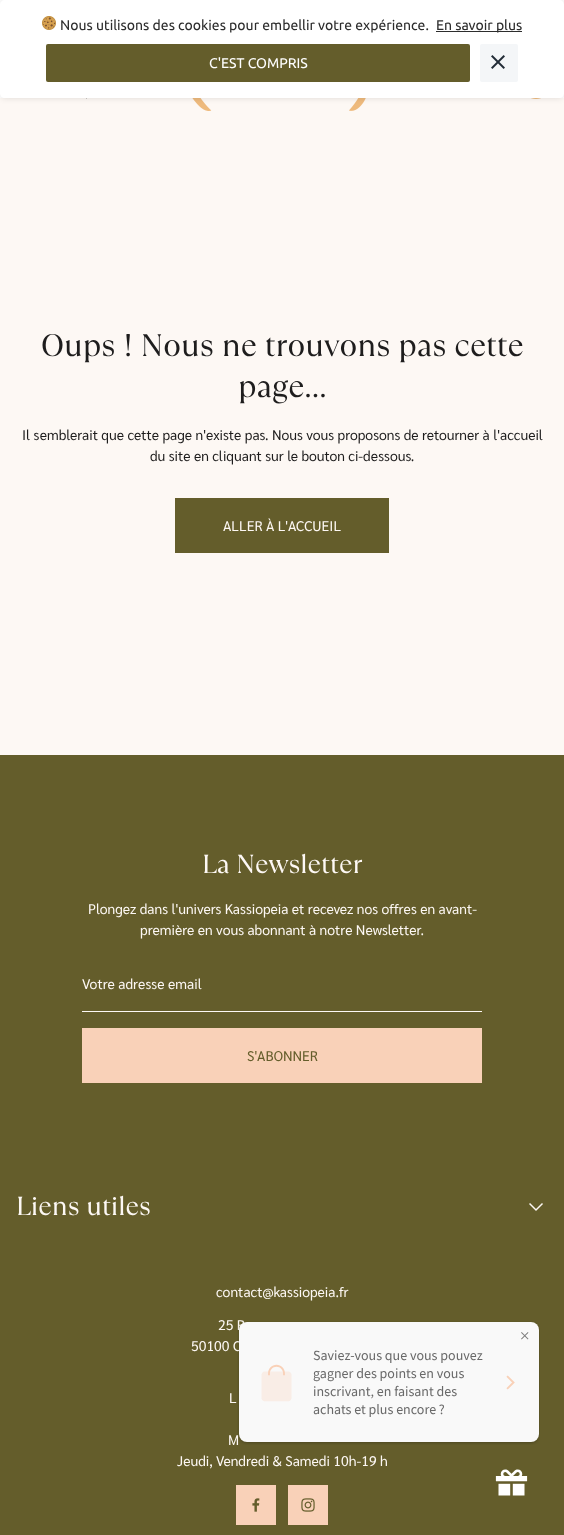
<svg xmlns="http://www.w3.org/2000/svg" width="564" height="1535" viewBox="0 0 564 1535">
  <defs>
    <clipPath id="clip1"><path d="M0 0H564V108H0ZM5 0H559C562 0 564 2 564 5V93C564 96 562 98 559 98H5C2 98 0 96 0 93V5C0 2 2 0 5 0Z" clip-rule="evenodd"/></clipPath>
  </defs>
  <rect width="100%" height="100%" fill="rgb(253,248,244)"/>
  <path d="M81.5 92.5L87 98M74.5 76C87 76 87.5 95 75 95.5C62 96 62 76 74.5 76Z" fill="none" stroke="rgb(30,29,29)" stroke-width="1.1"/>
  <circle cx="536" cy="87" r="12" fill="rgb(238,186,125)"/>
  <rect x="0" y="0" width="564" height="98" fill="rgb(255,255,255)"/>
  <image x="192" y="98" width="174" height="13" href="pic3.png"/>
  <g clip-path="url(#clip1)">
    <rect x="0" y="0" width="564" height="98" rx="5" fill="rgba(0,0,0,0.12)" filter="blur(3px)"/>
  </g>
  <image x="42" y="16" width="14" height="14" href="pic1.png"/>
  <text x="60" y="30" font-family="Ubuntu" font-size="14" fill="rgb(45,45,45)">Nous utilisons des cookies pour embellir votre expérience.</text>
  <rect x="436" y="31" width="86" height="1" fill="rgb(45,45,45)"/>
  <text x="436" y="30" font-family="Ubuntu" font-size="14" fill="rgb(45,45,45)">En savoir plus</text>
  <rect x="46" y="44" width="424" height="38" rx="2" fill="rgb(100,93,43)"/>
  <text x="209" y="68" font-family="Ubuntu" font-size="14" fill="rgb(255,255,255)">C'EST COMPRIS</text>
  <rect x="480" y="44" width="38" height="38" rx="2" fill="rgb(244,246,248)"/>
  <image x="491" y="55" width="14" height="14" href="pic2.png"/>
  <g font-family="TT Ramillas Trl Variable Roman" font-size="31.1" fill="rgb(30,29,29)">
    <text x="41" y="356">Oups ! Nous ne trouvons pas cette</text>
    <text x="238" y="397">page...</text>
  </g>
  <g font-family="Sarabun" font-size="14" fill="rgb(30,29,29)">
    <text x="22" y="440">Il semblerait que cette page n'existe pas. Nous vous proposons de retourner à l'accueil</text>
    <text x="150" y="461">du site en cliquant sur le bouton ci-dessous.</text>
  </g>
  <rect x="175" y="498" width="214" height="55" fill="rgb(100,93,43)"/>
  <text x="223" y="531" font-family="Sarabun" font-size="14" fill="rgb(253,248,244)">ALLER À L'ACCUEIL</text>
  <rect x="0" y="755" width="564" height="780" fill="rgb(100,93,43)"/>
  <text x="202" y="873" font-family="TT Ramillas Trl Variable Roman" font-size="26" fill="rgb(253,248,244)">La Newsletter</text>
  <g font-family="Sarabun" font-size="14" fill="rgb(253,248,244)">
    <text x="88" y="914">Plongez dans l'univers Kassiopeia et recevez nos offres en avant-</text>
    <text x="140" y="935">première en vous abonnant à notre Newsletter.</text>
  </g>
  <rect x="82" y="1011" width="400" height="1" fill="rgb(253,248,244)"/>
  <text x="82" y="989" font-family="Sarabun" font-size="14" fill="rgb(253,248,244)">Votre adresse email</text>
  <rect x="82" y="1028" width="400" height="55" fill="rgb(249,209,184)"/>
  <text x="247" y="1061" font-family="Sarabun" font-size="14" fill="rgb(100,93,43)">S'ABONNER</text>
  <text x="16" y="1215" font-family="TT Ramillas Trl Variable Roman" font-size="26" fill="rgb(253,248,244)">Liens utiles</text>
  <image x="529" y="1203" width="14" height="8" href="pic4.png"/>
  <g font-family="Sarabun" font-size="14" fill="rgb(253,248,244)">
    <text x="216" y="1297">contact@kassiopeia.fr</text>
    <text x="218" y="1330">25 R</text>
    <text x="191" y="1351">50100 C</text>
    <text x="229" y="1403">L</text>
    <text x="228" y="1445">M</text>
    <text x="177" y="1466">Jeudi, Vendredi &amp; Samedi 10h-19 h</text>
  </g>
  <rect x="236" y="1485" width="40" height="40" fill="rgb(249,209,184)"/>
  <image x="252" y="1498" width="8" height="14" href="pic5.png"/>
  <rect x="288" y="1485" width="40" height="40" fill="rgb(249,209,184)"/>
  <image x="301" y="1498" width="14" height="14" href="pic6.png"/>
  <image x="237" y="1321" width="303" height="124" href="pic7.png"/>
  <image x="495" y="1469" width="33" height="27" href="pic8.png"/>
</svg>
